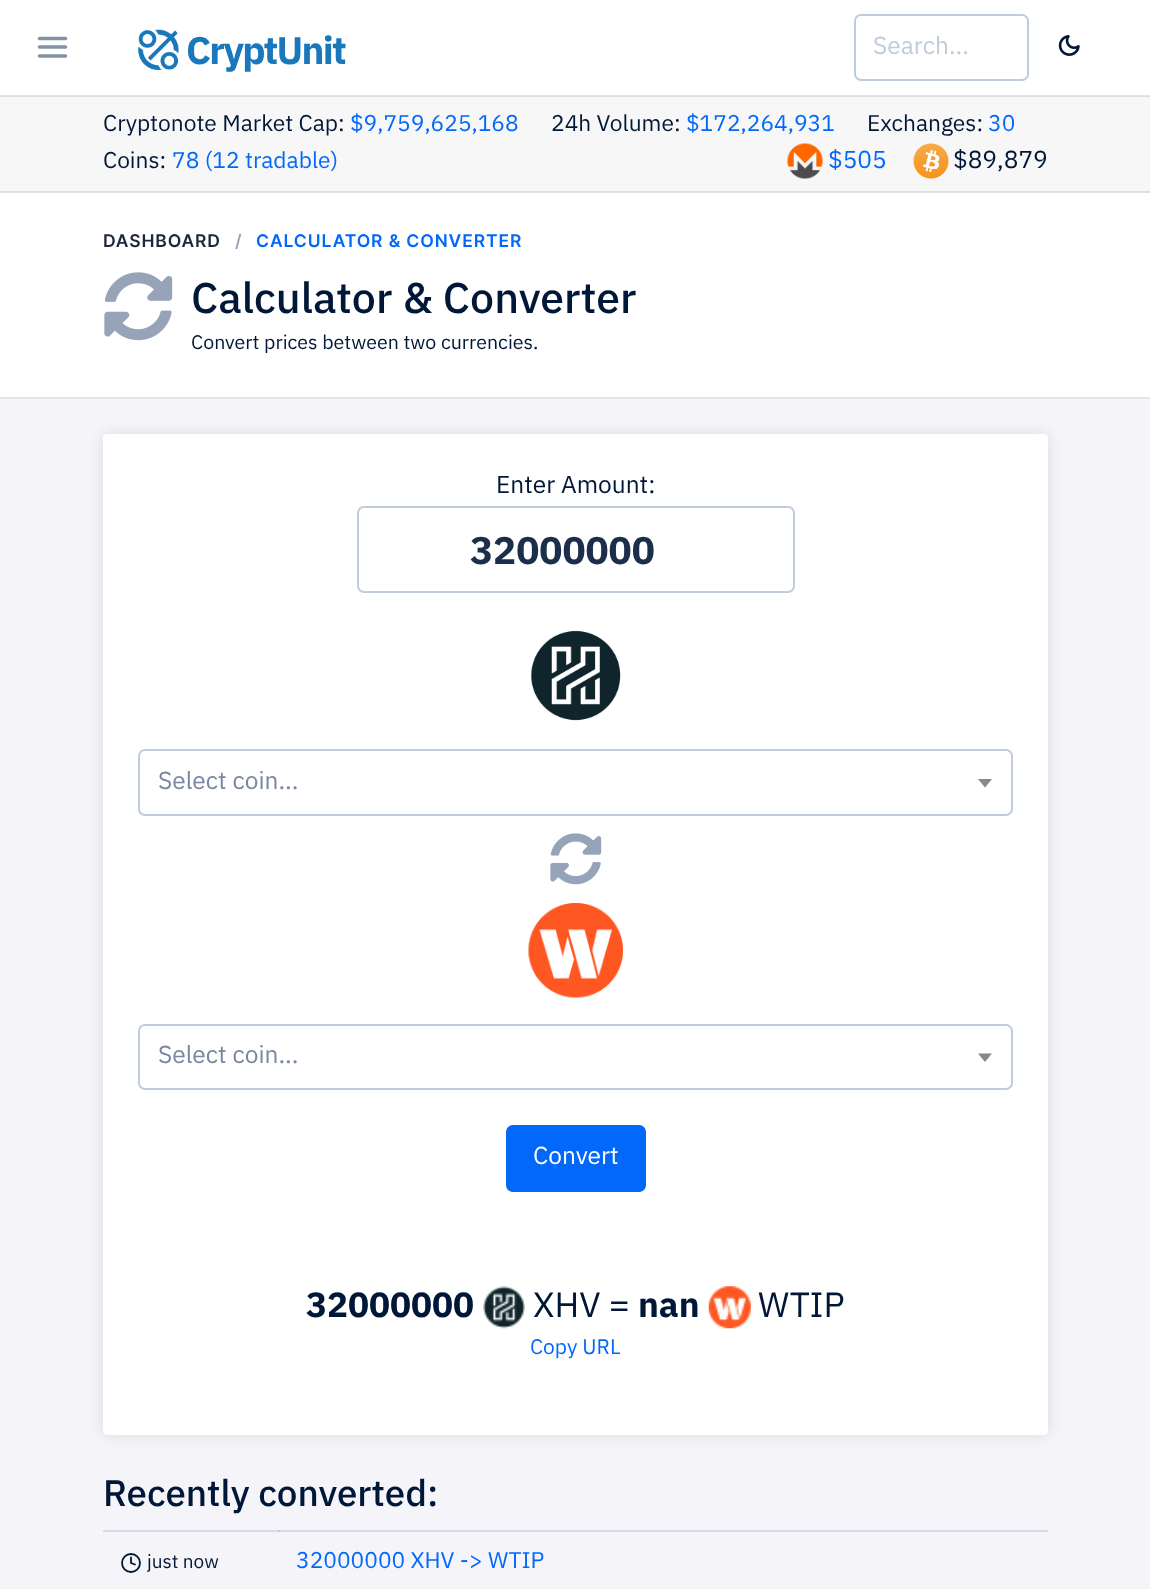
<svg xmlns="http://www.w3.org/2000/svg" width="1150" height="1589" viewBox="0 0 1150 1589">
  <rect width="100%" height="100%" fill="rgb(244,244,249)"/>
  <rect x="103" y="1530" width="945" height="2" fill="rgb(216,220,232)"/>
  <rect x="0" y="0" width="1150" height="95" fill="rgb(255,255,255)"/>
  <rect x="0" y="95" width="1150" height="1" fill="rgb(226,229,237)"/>
  <path d="M39.5 47H65.5M39.5 38.5H65.5M39.5 56H65.5" fill="none" stroke="rgb(131,146,165)" stroke-width="3.6" stroke-linecap="round" stroke-linejoin="round"/>
  <image x="138" y="29" width="41" height="41" href="pic1.png"/>
  <text x="186" y="64" font-family="IBM Plex Sans" font-size="38.5" font-weight="bold" letter-spacing="-1.75" fill="rgb(25,120,187)">CryptUnit</text>
  <rect x="855" y="15" width="173" height="65" rx="6" fill="none" stroke="rgb(192,204,218)" stroke-width="2"/>
  <text x="873" y="54" font-family="IBM Plex Sans" font-size="24.5" fill="rgb(192,204,218)">Search...</text>
  <image x="1058" y="35" width="22" height="21" href="pic2.png"/>
  <rect x="0" y="97" width="1150" height="94" fill="rgb(247,247,247)"/>
  <rect x="0" y="96" width="1150" height="1" fill="rgb(219,223,231)"/>
  <rect x="0" y="191" width="1150" height="2" fill="rgb(219,223,231)"/>
  <text x="103" y="131" font-family="IBM Plex Sans" font-size="22.75" fill="rgb(0,23,55)">Cryptonote Market Cap:</text>
  <text x="350" y="131" font-family="IBM Plex Sans" font-size="22.75" fill="rgb(1,104,250)">$9,759,625,168</text>
  <text x="551" y="131" font-family="IBM Plex Sans" font-size="22.75" fill="rgb(0,23,55)">24h Volume:</text>
  <text x="686" y="131" font-family="IBM Plex Sans" font-size="22.75" fill="rgb(1,104,250)">$172,264,931</text>
  <text x="867" y="131" font-family="IBM Plex Sans" font-size="22.75" fill="rgb(0,23,55)">Exchanges:</text>
  <text x="988" y="131" font-family="IBM Plex Sans" font-size="22.75" fill="rgb(1,104,250)">30</text>
  <text x="103" y="168" font-family="IBM Plex Sans" font-size="22.75" fill="rgb(0,23,55)">Coins:</text>
  <text x="172" y="168" font-family="IBM Plex Sans" font-size="22.75" fill="rgb(1,104,250)">78 (12 tradable)</text>
  <image x="787" y="143" width="36" height="36" href="pic3.png"/>
  <text x="828" y="168" font-family="IBM Plex Sans" font-size="24.5" fill="rgb(1,104,250)">$505</text>
  <image x="913" y="143" width="36" height="36" href="pic4.png"/>
  <text x="953" y="168" font-family="IBM Plex Sans" font-size="24.5" fill="rgb(0,23,55)">$89,879</text>
  <rect x="0" y="193" width="1150" height="204" fill="rgb(255,255,255)"/>
  <rect x="0" y="397" width="1150" height="2" fill="rgb(226,229,237)"/>
  <text x="103" y="247" font-family="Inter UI" font-size="17.5" font-weight="600" letter-spacing="0.9" fill="rgb(28,39,60)">DASHBOARD</text>
  <text x="235" y="247" font-family="Inter UI" font-size="17.5" font-weight="600" letter-spacing="0.9" fill="rgb(151,163,185)">/</text>
  <text x="256" y="247" font-family="Inter UI" font-size="17.5" font-weight="600" letter-spacing="0.9" fill="rgb(1,104,250)">CALCULATOR &amp; CONVERTER</text>
  <image x="104" y="272" width="69" height="69" href="pic5.png"/>
  <text x="191" y="313" font-family="IBM Plex Sans" font-size="42.9" font-weight="500" fill="rgb(0,23,55)">Calculator &amp; Converter</text>
  <text x="191" y="349" font-family="IBM Plex Sans" font-size="19.6" fill="rgb(0,23,55)">Convert prices between two currencies.</text>
  <rect x="103" y="434" width="945" height="1001" rx="4" fill="rgba(0,0,0,0.1)" filter="blur(7px)"/>
  <rect x="103" y="434" width="945" height="1001" rx="4" fill="rgb(255,255,255)"/>
  <text x="496" y="493" font-family="IBM Plex Sans" font-size="24.5" fill="rgb(0,23,55)">Enter Amount:</text>
  <rect x="358" y="507" width="436" height="85" rx="6" fill="none" stroke="rgb(192,204,218)" stroke-width="2"/>
  <text x="470" y="564" font-family="IBM Plex Sans" font-size="38.5" font-weight="bold" fill="rgb(27,46,75)">32000000</text>
  <image x="530" y="630" width="91" height="91" href="pic6.png"/>
  <rect x="139" y="750" width="873" height="65" rx="6" fill="none" stroke="rgb(192,204,218)" stroke-width="2"/>
  <text x="158" y="789" font-family="IBM Plex Sans" font-size="24.5" fill="rgb(121,135,161)">Select coin...</text>
  <path d="M978 779H992L985 787.5Z" fill="rgb(136,136,136)"/>
  <image x="550" y="833" width="52" height="52" href="pic7.png"/>
  <image x="528" y="903" width="95" height="95" href="pic8.png"/>
  <rect x="139" y="1025" width="873" height="64" rx="6" fill="none" stroke="rgb(192,204,218)" stroke-width="2"/>
  <text x="158" y="1063" font-family="IBM Plex Sans" font-size="24.5" fill="rgb(121,135,161)">Select coin...</text>
  <path d="M978 1053.5H992L985 1062Z" fill="rgb(136,136,136)"/>
  <rect x="507" y="1126" width="138" height="65" rx="6" fill="rgb(1,104,250)" stroke="rgb(1,104,250)" stroke-width="2"/>
  <text x="533" y="1164" font-family="IBM Plex Sans" font-size="24.5" fill="rgb(255,255,255)">Convert</text>
  <text x="306" y="1317" font-family="IBM Plex Sans" font-size="35" font-weight="bold" fill="rgb(0,23,55)">32000000</text>
  <image x="483" y="1286" width="42" height="43" href="pic9.png"/>
  <text x="533" y="1317" font-family="IBM Plex Sans" font-size="35" fill="rgb(0,23,55)">XHV =</text>
  <text x="638" y="1317" font-family="IBM Plex Sans" font-size="35" font-weight="bold" fill="rgb(0,23,55)">nan</text>
  <image x="708" y="1286" width="43" height="43" href="pic10.png"/>
  <text x="758" y="1317" font-family="IBM Plex Sans" font-size="35" fill="rgb(0,23,55)">WTIP</text>
  <text x="530" y="1354" font-family="IBM Plex Sans" font-size="21" fill="rgb(1,104,250)">Copy URL</text>
  <text x="103" y="1506" font-family="IBM Plex Sans" font-size="36.75" font-weight="500" fill="rgb(0,23,55)">Recently converted:</text>
  <circle cx="131" cy="1563" r="9" fill="none" stroke="rgb(0,23,55)" stroke-width="1.8"/>
  <text x="147" y="1568" font-family="IBM Plex Sans" font-size="19" fill="rgb(0,23,55)">just now</text>
  <path d="M131 1557.5V1563L135 1564.5" fill="none" stroke="rgb(0,23,55)" stroke-width="1.8" stroke-linecap="round" stroke-linejoin="round"/>
  <rect x="278" y="1530" width="2" height="2" fill="rgb(193,200,218)"/>
  <text x="296" y="1568" font-family="IBM Plex Sans" font-size="22.75" fill="rgb(1,104,250)">32000000 XHV -&gt; WTIP</text>
</svg>
